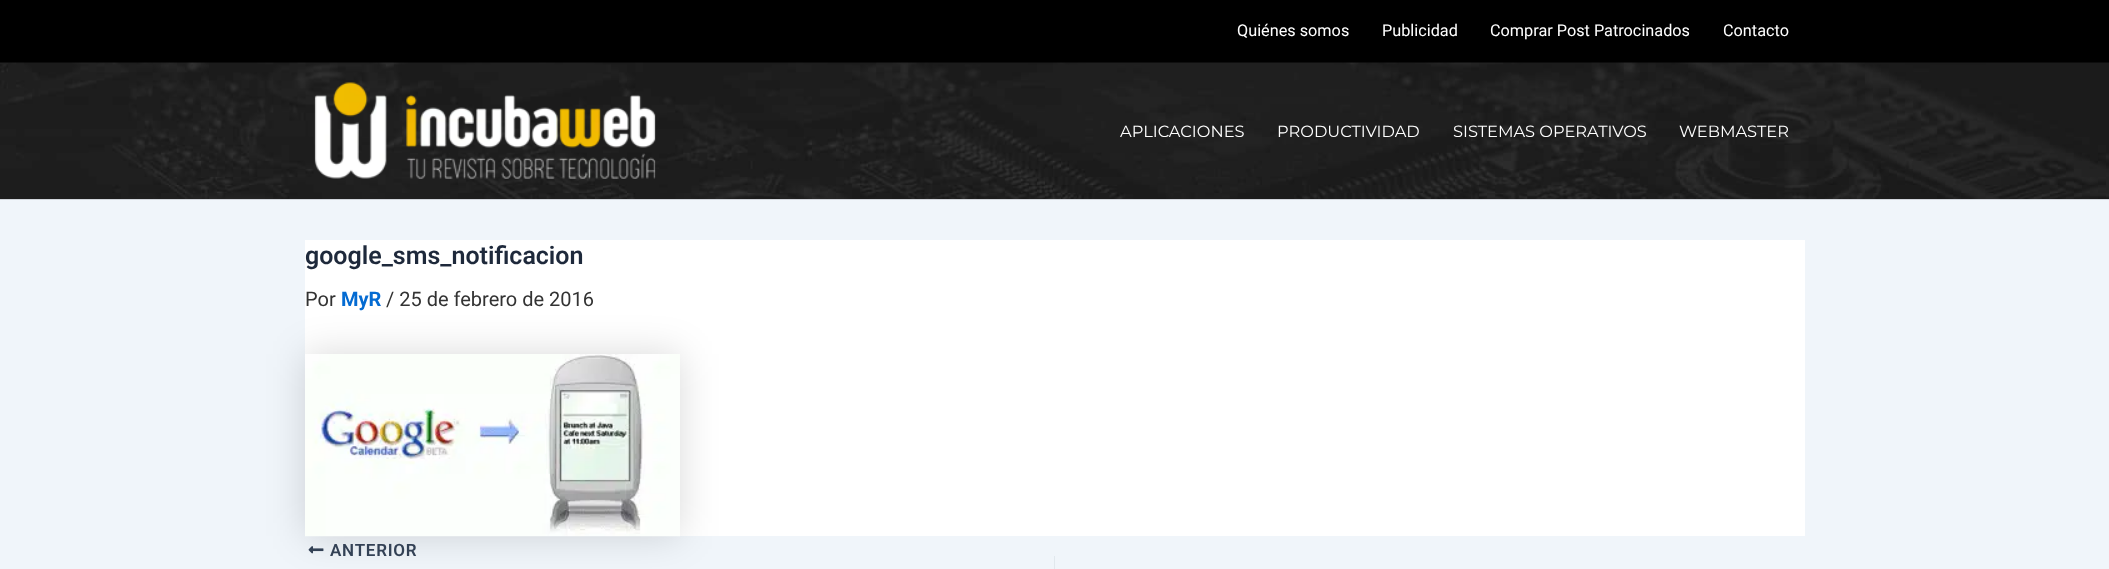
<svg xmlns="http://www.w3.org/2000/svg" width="2109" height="569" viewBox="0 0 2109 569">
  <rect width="100%" height="100%" fill="rgb(240,245,250)"/>
  <rect x="0" y="0" width="2109" height="63" fill="rgb(0,0,0)"/>
  <g font-family="Roboto" font-size="16.25" fill="rgb(255,255,255)">
    <text x="1237" y="36">Quiénes somos</text>
    <text x="1382" y="36">Publicidad</text>
    <text x="1490" y="36">Comprar Post Patrocinados</text>
    <text x="1723" y="36">Contacto</text>
  </g>
  <image x="0" y="62" width="2109" height="137" href="pic1.png"/>
  <rect x="0" y="199" width="2109" height="1" fill="rgb(209,213,219)"/>
  <image x="314" y="82" width="342" height="97" href="pic2.png"/>
  <g font-family="Montserrat" font-size="16.25" font-weight="100" fill="rgb(255,255,255)">
    <text x="1120" y="137">APLICACIONES</text>
    <text x="1277" y="137">PRODUCTIVIDAD</text>
    <text x="1453" y="137">SISTEMAS OPERATIVOS</text>
    <text x="1679" y="137">WEBMASTER</text>
  </g>
  <rect x="305" y="240" width="1500" height="296" fill="rgb(255,255,255)"/>
  <text x="305" y="264" font-family="Roboto" font-size="25" font-weight="600" fill="rgb(30,41,59)">google_sms_notificacion</text>
  <text x="305" y="306" font-family="Roboto" font-size="20" fill="rgb(51,51,51)">Por</text>
  <text x="341" y="306" font-family="Roboto" font-size="20" font-weight="bold" fill="rgb(4,107,210)">MyR</text>
  <text x="386" y="306" font-family="Roboto" font-size="20" fill="rgb(51,51,51)">/ 25 de febrero de 2016</text>
  <rect x="305" y="354" width="375" height="182" fill="rgba(0,0,0,0.15)" filter="blur(19px)"/>
  <image x="305" y="354" width="375" height="183" href="pic3.png"/>
  <image x="308" y="546" width="16" height="8" href="pic4.png"/>
  <text x="330" y="556" font-family="Roboto" font-size="17" font-weight="600" letter-spacing="0.75" fill="rgb(51,65,85)">ANTERIOR</text>
  <rect x="1054" y="556" width="1" height="13" fill="rgb(225,232,237)"/>
</svg>
